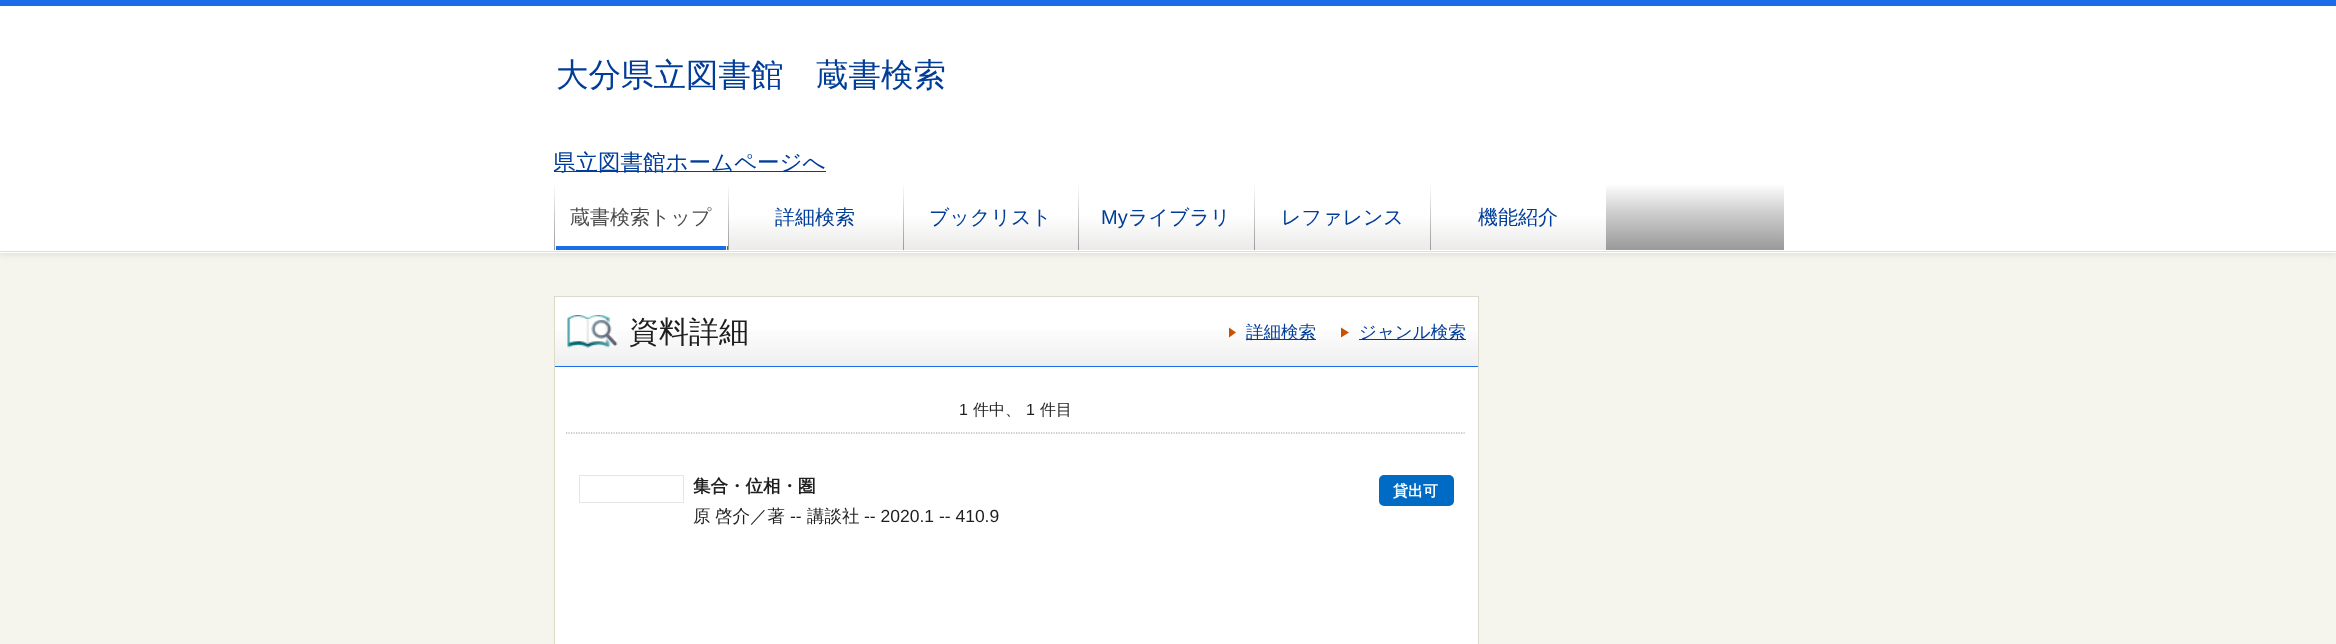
<svg xmlns="http://www.w3.org/2000/svg" width="2336" height="644" viewBox="0 0 2336 644">
  <defs>
    <linearGradient id="g1" gradientUnits="userSpaceOnUse" x1="1169" y1="250" x2="1169" y2="180"><stop offset="0" stop-color="rgb(153,153,153)"/><stop offset="0.55" stop-color="rgb(207,207,207)"/><stop offset="0.95" stop-color="rgb(255,255,255)"/><stop offset="1" stop-color="rgb(255,255,255)"/></linearGradient>
    <linearGradient id="g2" gradientUnits="userSpaceOnUse" x1="816" y1="250" x2="816" y2="180"><stop offset="0" stop-color="rgb(235,234,233)"/><stop offset="0.5" stop-color="rgb(255,255,255)"/><stop offset="1" stop-color="rgb(255,255,255)"/></linearGradient>
    <linearGradient id="g3" gradientUnits="userSpaceOnUse" x1="991" y1="250" x2="991" y2="180"><stop offset="0" stop-color="rgb(235,234,233)"/><stop offset="0.5" stop-color="rgb(255,255,255)"/><stop offset="1" stop-color="rgb(255,255,255)"/></linearGradient>
    <linearGradient id="g4" gradientUnits="userSpaceOnUse" x1="1166" y1="250" x2="1166" y2="180"><stop offset="0" stop-color="rgb(235,234,233)"/><stop offset="0.5" stop-color="rgb(255,255,255)"/><stop offset="1" stop-color="rgb(255,255,255)"/></linearGradient>
    <linearGradient id="g5" gradientUnits="userSpaceOnUse" x1="1343" y1="250" x2="1343" y2="180"><stop offset="0" stop-color="rgb(235,234,233)"/><stop offset="0.5" stop-color="rgb(255,255,255)"/><stop offset="1" stop-color="rgb(255,255,255)"/></linearGradient>
    <linearGradient id="g6" gradientUnits="userSpaceOnUse" x1="1519" y1="250" x2="1519" y2="180"><stop offset="0" stop-color="rgb(235,234,233)"/><stop offset="0.5" stop-color="rgb(255,255,255)"/><stop offset="1" stop-color="rgb(255,255,255)"/></linearGradient>
    <linearGradient id="g7" gradientUnits="userSpaceOnUse" x1="1016" y1="366" x2="1016" y2="298"><stop offset="0" stop-color="rgb(235,235,235)"/><stop offset="0" stop-color="rgb(239,239,239)"/><stop offset="0.62" stop-color="rgb(255,255,255)"/><stop offset="1" stop-color="rgb(255,255,255)"/></linearGradient>
  </defs>
  <rect width="100%" height="100%" fill="rgb(245,244,237)"/>
  <rect x="0" y="0" width="2336" height="253" fill="rgba(0,0,0,0.13)" filter="blur(4.5px)"/>
  <rect x="0" y="6" width="2336" height="247" fill="rgb(255,255,255)"/>
  <rect x="0" y="0" width="2336" height="6" fill="rgb(26,109,230)"/>
  <rect x="0" y="251" width="2336" height="1" fill="rgb(222,221,216)"/>
  <text x="556" y="86" font-family="WenQuanYi Zen Hei" font-size="32.5" font-weight="500" fill="rgb(0,61,153)">大分県立図書館　蔵書検索</text>
  <rect x="554" y="171" width="272" height="1" fill="rgb(0,61,153)"/>
  <text x="553" y="170" font-family="WenQuanYi Zen Hei" font-size="22.5" font-weight="500" fill="rgb(0,61,153)">県立図書館ホームページへ</text>
  <rect x="554" y="185" width="1230" height="65" fill="url(#g1)"/>
  <rect x="555" y="185" width="173" height="61" fill="rgb(255,255,255)"/>
  <rect x="555" y="246" width="173" height="4" fill="rgb(26,109,230)"/>
  <text x="570" y="224" font-family="WenQuanYi Zen Hei" font-size="20" font-weight="500" fill="rgb(76,76,76)">蔵書検索トップ</text>
  <rect x="555" y="246" width="1" height="4" fill="rgb(255,255,255)"/>
  <rect x="726" y="246" width="1" height="4" fill="rgb(255,255,255)"/>
  <rect x="729" y="185" width="174" height="65" fill="url(#g2)"/>
  <text x="775" y="224" font-family="WenQuanYi Zen Hei" font-size="20" font-weight="500" fill="rgb(0,61,153)">詳細検索</text>
  <rect x="904" y="185" width="174" height="65" fill="url(#g3)"/>
  <text x="929" y="224" font-family="WenQuanYi Zen Hei" font-size="20" font-weight="500" fill="rgb(0,61,153)">ブックリスト</text>
  <rect x="1079" y="185" width="175" height="65" fill="url(#g4)"/>
  <text x="1101" y="224" font-family="Liberation Sans" font-size="20" fill="rgb(0,61,153)">My</text>
  <text x="1128" y="224" font-family="WenQuanYi Zen Hei" font-size="20" font-weight="500" fill="rgb(0,61,153)">ライブラリ</text>
  <rect x="1255" y="185" width="175" height="65" fill="url(#g5)"/>
  <text x="1281" y="224" font-family="WenQuanYi Zen Hei" font-size="20" font-weight="500" fill="rgb(0,61,153)">レファレンス</text>
  <rect x="1431" y="185" width="175" height="65" fill="url(#g6)"/>
  <text x="1478" y="224" font-family="WenQuanYi Zen Hei" font-size="20" font-weight="500" fill="rgb(0,61,153)">機能紹介</text>
  <rect x="554.5" y="296.5" width="924" height="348" fill="rgb(255,255,255)" stroke="rgb(219,218,203)"/>
  <rect x="555" y="330" width="923" height="36" fill="url(#g7)"/>
  <rect x="555" y="366" width="923" height="1" fill="rgb(26,109,230)"/>
  <image x="567" y="315" width="51" height="33" href="pic1.png"/>
  <text x="629" y="342" font-family="WenQuanYi Zen Hei" font-size="30" font-weight="500" fill="rgb(31,31,31)">資料詳細</text>
  <path d="M1229 337.5V327.5L1236 332.5Z" fill="rgb(204,78,0)"/>
  <rect x="1246" y="339" width="70" height="1" fill="rgb(0,61,153)"/>
  <text x="1246" y="338" font-family="WenQuanYi Zen Hei" font-size="17.5" font-weight="500" fill="rgb(0,61,153)">詳細検索</text>
  <path d="M1341 337.5V327.5L1349 332.5Z" fill="rgb(204,78,0)"/>
  <rect x="1359" y="339" width="107" height="1" fill="rgb(0,61,153)"/>
  <text x="1359" y="338" font-family="WenQuanYi Zen Hei" font-size="17.5" font-weight="500" fill="rgb(0,61,153)">ジャンル検索</text>
  <path d="M566 433H1466" fill="none" stroke="rgb(155,155,155)" stroke-width="1.2" stroke-dasharray="1.25 1.25"/>
  <text x="959" y="415" font-family="Liberation Sans" font-size="16" fill="rgb(31,31,31)">1</text>
  <text x="973" y="415" font-family="WenQuanYi Zen Hei" font-size="16" font-weight="500" fill="rgb(31,31,31)">件中、</text>
  <text x="1026" y="415" font-family="Liberation Sans" font-size="16" fill="rgb(31,31,31)">1</text>
  <text x="1040" y="415" font-family="WenQuanYi Zen Hei" font-size="16" font-weight="500" fill="rgb(31,31,31)">件目</text>
  <rect x="579.5" y="475.5" width="104" height="27" fill="none" stroke="rgb(229,229,229)"/>
  <text x="693" y="492" font-family="WenQuanYi Zen Hei" font-size="17.5" font-weight="bold" fill="rgb(31,31,31)">集合・位相・圏</text>
  <rect x="1380.5" y="476.5" width="72" height="28" rx="3.5" fill="rgb(0,107,197)" stroke="rgb(0,107,197)" stroke-width="3"/>
  <text x="1393" y="496" font-family="WenQuanYi Zen Hei" font-size="15" font-weight="bold" fill="rgb(255,255,255)">貸出可</text>
  <g font-family="WenQuanYi Zen Hei" font-size="17.5" font-weight="500" fill="rgb(31,31,31)">
    <text x="693" y="522">原</text>
    <text x="715" y="522">啓介／著</text>
  </g>
  <text x="790" y="522" font-family="Liberation Sans" font-size="17.5" fill="rgb(31,31,31)">--</text>
  <text x="807" y="522" font-family="WenQuanYi Zen Hei" font-size="17.5" font-weight="500" fill="rgb(31,31,31)">講談社</text>
  <text x="864" y="522" font-family="Liberation Sans" font-size="17.5" fill="rgb(31,31,31)">-- 2020.1 -- 410.9</text>
</svg>
